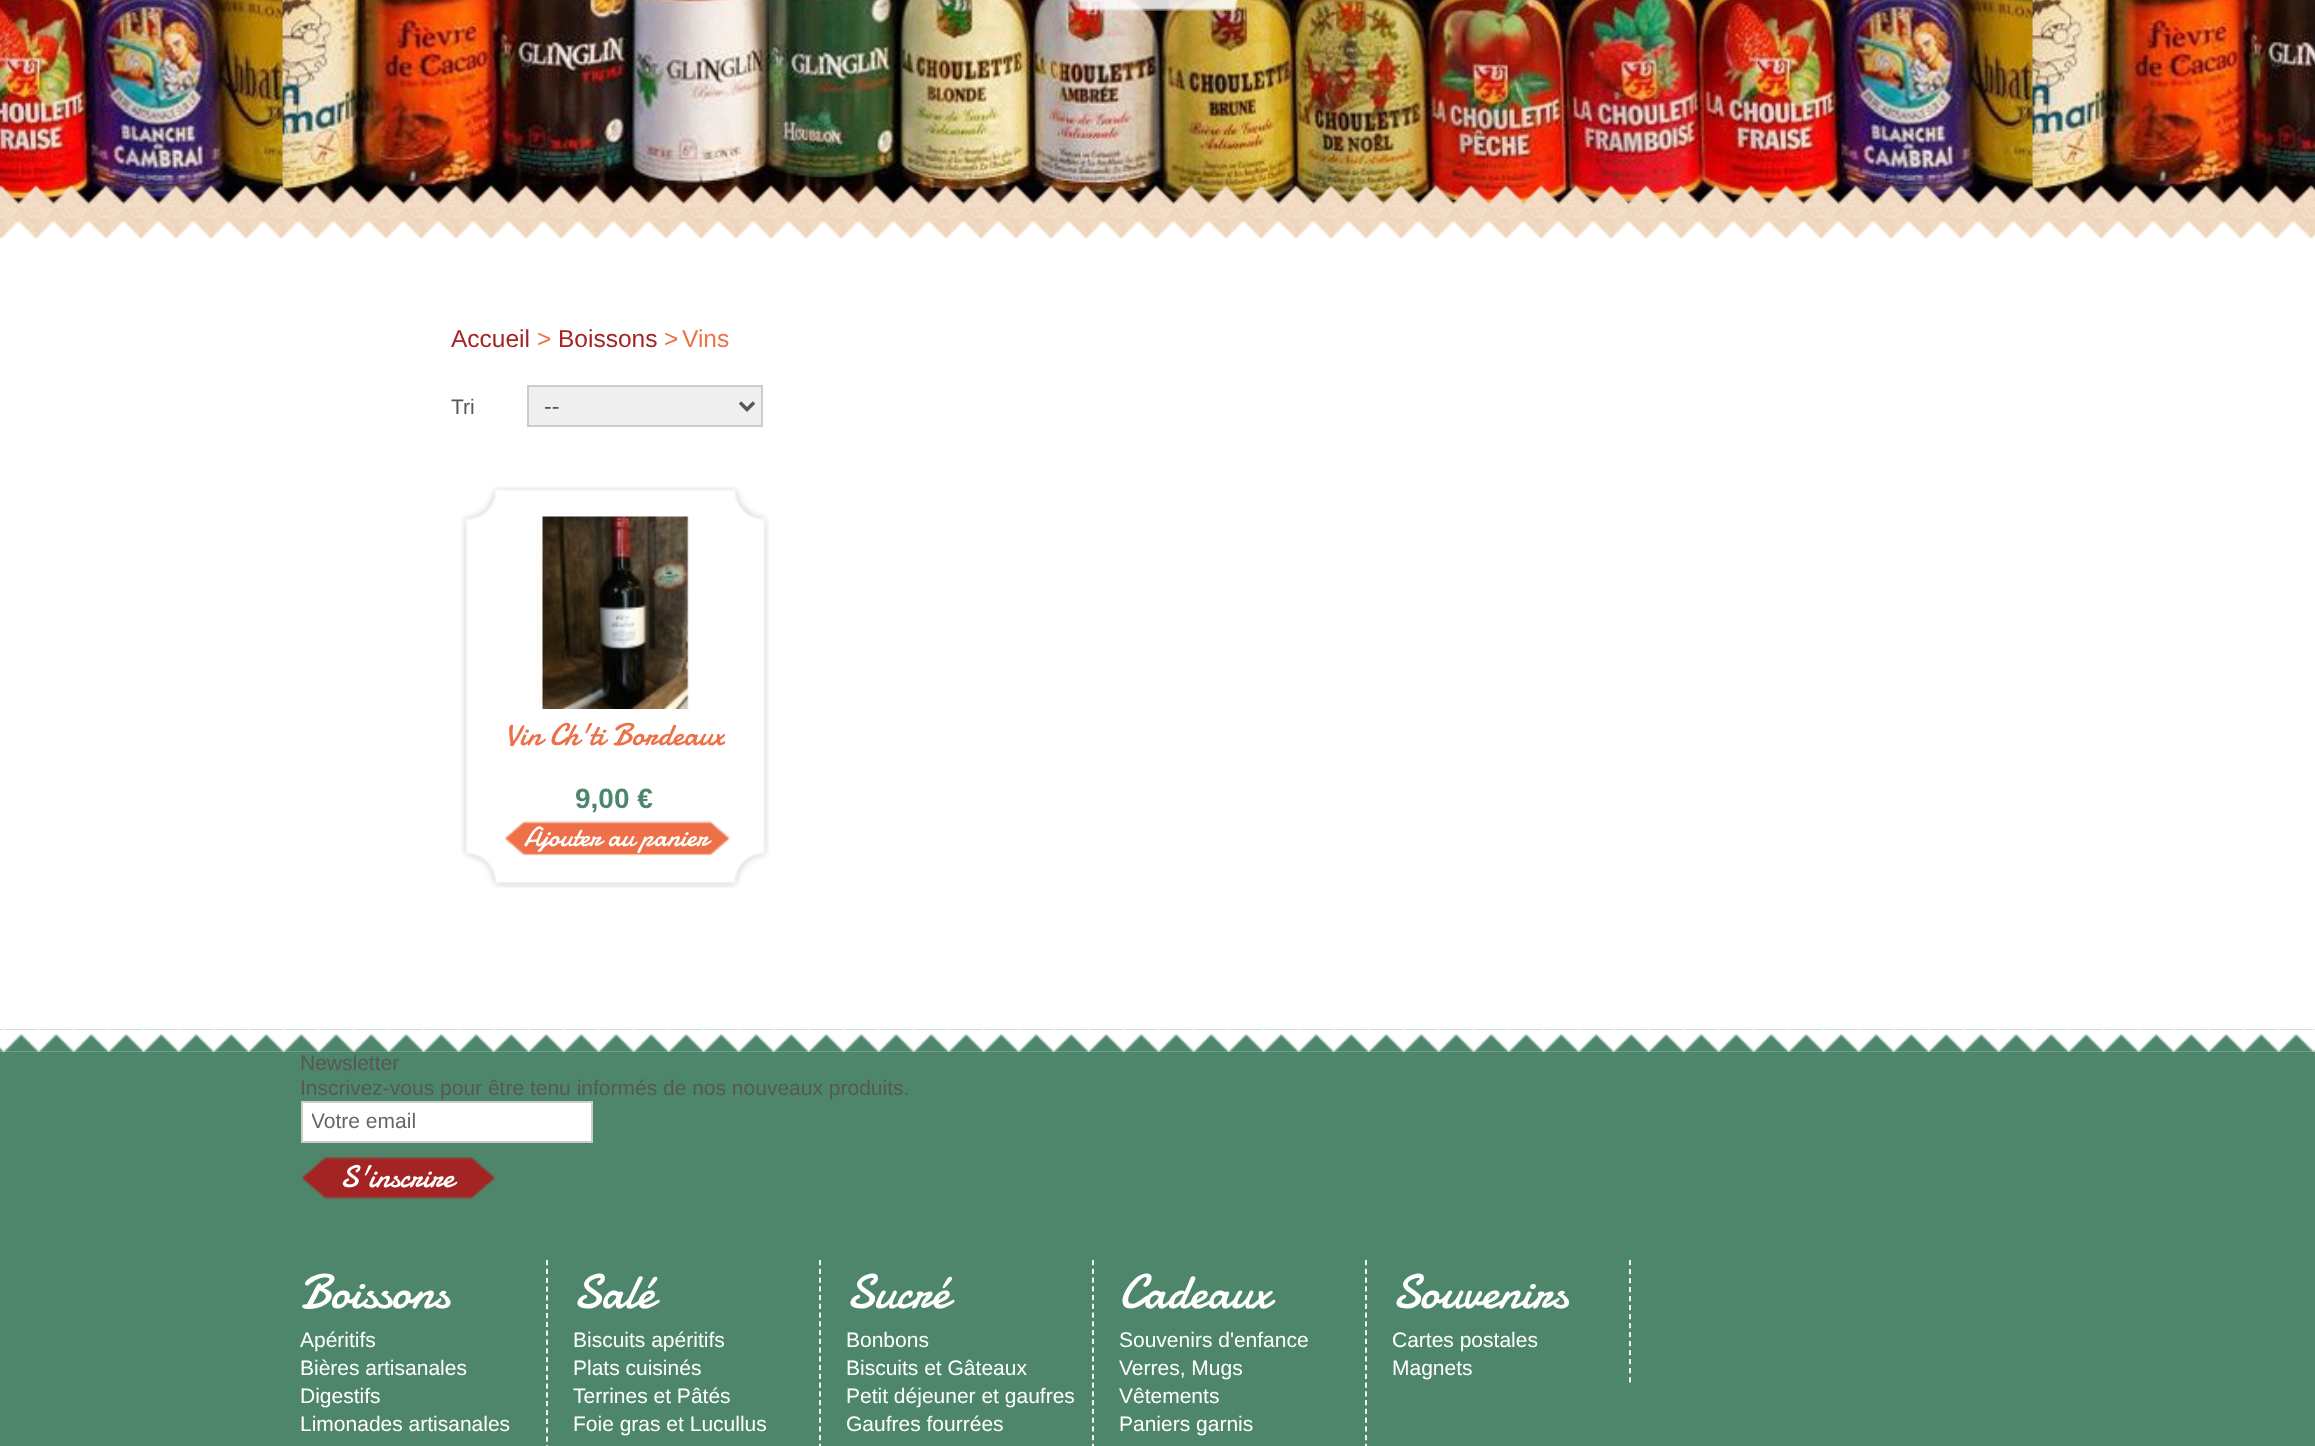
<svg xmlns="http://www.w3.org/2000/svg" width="2315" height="1446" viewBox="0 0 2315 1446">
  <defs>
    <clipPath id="clip1"><rect x="504" y="719" width="221" height="35"/></clipPath>
    <clipPath id="clip2"><rect x="312" y="1110" width="271" height="24"/></clipPath>
  </defs>
  <rect width="100%" height="100%" fill="rgb(255,255,255)"/>
  <image x="0" y="0" width="2315" height="204" href="pic1.png"/>
  <image x="1077" y="0" width="42" height="11" href="pic2.png"/>
  <image x="1118" y="0" width="79" height="11" href="pic3.png"/>
  <image x="1197" y="0" width="42" height="11" href="pic4.png"/>
  <image x="0" y="185" width="2315" height="54" href="pic5.png"/>
  <text x="451" y="347" font-family="Liberation Sans" font-size="24.5" fill="rgb(164,36,35)">Accueil</text>
  <text x="537" y="347" font-family="Liberation Sans" font-size="24.5" fill="rgb(238,112,72)">&gt;</text>
  <text x="558" y="347" font-family="Liberation Sans" font-size="24.5" fill="rgb(164,36,35)">Boissons</text>
  <g font-family="Liberation Sans" font-size="24.5" fill="rgb(238,112,72)">
    <text x="664" y="347">&gt;</text>
    <text x="682" y="347">Vins</text>
  </g>
  <text x="451" y="414" font-family="Liberation Sans" font-size="21" fill="rgb(87,87,86)">Tri</text>
  <rect x="528" y="386" width="234" height="40" fill="rgb(239,239,239)" stroke="rgb(204,204,204)" stroke-width="2"/>
  <path d="M740 402.5L747 409.5L754 402.5" fill="none" stroke="rgb(87,87,86)" stroke-width="3.5"/>
  <text x="544" y="414" font-family="Liberation Sans" font-size="23" fill="rgb(87,87,86)">--</text>
  <image x="461" y="486" width="308" height="402" href="pic6.png"/>
  <image x="535" y="516" width="163" height="193" href="pic7.png"/>
  <g clip-path="url(#clip1)">
    <text x="505" y="745" font-family="Damion" font-size="31.5" fill="rgb(238,112,72)">Vin Ch'ti Bordeaux</text>
  </g>
  <text x="575" y="808" font-family="Liberation Sans" font-size="28" font-weight="bold" fill="rgb(78,134,108)">9,00 €</text>
  <image x="504" y="821" width="226" height="35" href="pic8.png"/>
  <text x="524" y="846" font-family="Damion" font-size="28" fill="rgb(255,255,255)">Ajouter au panier</text>
  <image x="0" y="1029" width="2315" height="23" href="pic9.png"/>
  <rect x="0" y="1052" width="2315" height="394" fill="rgb(78,134,108)"/>
  <g font-family="Liberation Sans" font-size="21" fill="rgb(87,87,86)">
    <text>
      <tspan x="300" y="1070">Newsletter</tspan>
      <tspan x="300" y="1095">Inscrivez-vous pour être tenu informés de nos nouveaux produits.</tspan>
    </text>
  </g>
  <rect x="302" y="1102" width="290" height="40" fill="rgb(255,255,255)" stroke="rgb(204,204,204)" stroke-width="2"/>
  <g clip-path="url(#clip2)">
    <text x="311" y="1128" font-family="Liberation Sans" font-size="21" fill="rgb(102,102,102)">Votre email</text>
  </g>
  <image x="301" y="1157" width="195" height="42" href="pic10.png"/>
  <text x="340" y="1187" font-family="Damion" font-size="31.5" fill="rgb(255,255,255)">S'inscrire</text>
  <path d="M547 1260V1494.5" fill="none" stroke="rgb(255,255,255)" stroke-width="1.8" stroke-dasharray="5.25 3.57"/>
  <text x="300" y="1308" font-family="Damion" font-size="49" fill="rgb(255,255,255)">Boissons</text>
  <g font-family="Liberation Sans" font-size="21" fill="rgb(255,255,255)">
    <text>
      <tspan x="300" y="1347">Apéritifs</tspan>
      <tspan x="300" y="1375">Bières artisanales</tspan>
      <tspan x="300" y="1403">Digestifs</tspan>
      <tspan x="300" y="1431">Limonades artisanales</tspan>
    </text>
  </g>
  <path d="M820 1260V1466.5" fill="none" stroke="rgb(255,255,255)" stroke-width="1.8" stroke-dasharray="5.25 3.5"/>
  <text x="573" y="1308" font-family="Damion" font-size="49" fill="rgb(255,255,255)">Salé</text>
  <g font-family="Liberation Sans" font-size="21" fill="rgb(255,255,255)">
    <text>
      <tspan x="573" y="1347">Biscuits apéritifs</tspan>
      <tspan x="573" y="1375">Plats cuisinés</tspan>
      <tspan x="573" y="1403">Terrines et Pâtés</tspan>
      <tspan x="573" y="1431">Foie gras et Lucullus</tspan>
    </text>
  </g>
  <path d="M1093 1260V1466.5" fill="none" stroke="rgb(255,255,255)" stroke-width="1.8" stroke-dasharray="5.25 3.5"/>
  <text x="846" y="1308" font-family="Damion" font-size="49" fill="rgb(255,255,255)">Sucré</text>
  <g font-family="Liberation Sans" font-size="21" fill="rgb(255,255,255)">
    <text>
      <tspan x="846" y="1347">Bonbons</tspan>
      <tspan x="846" y="1375">Biscuits et Gâteaux</tspan>
      <tspan x="846" y="1403">Petit déjeuner et gaufres</tspan>
      <tspan x="846" y="1431">Gaufres fourrées</tspan>
    </text>
  </g>
  <path d="M1366 1260V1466.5" fill="none" stroke="rgb(255,255,255)" stroke-width="1.8" stroke-dasharray="5.25 3.5"/>
  <text x="1119" y="1308" font-family="Damion" font-size="49" fill="rgb(255,255,255)">Cadeaux</text>
  <g font-family="Liberation Sans" font-size="21" fill="rgb(255,255,255)">
    <text>
      <tspan x="1119" y="1347">Souvenirs d'enfance</tspan>
      <tspan x="1119" y="1375">Verres, Mugs</tspan>
      <tspan x="1119" y="1403">Vêtements</tspan>
      <tspan x="1119" y="1431">Paniers garnis</tspan>
    </text>
  </g>
  <path d="M1630 1260V1382.5" fill="none" stroke="rgb(255,255,255)" stroke-width="1.8" stroke-dasharray="5.25 3.76"/>
  <text x="1392" y="1308" font-family="Damion" font-size="49" fill="rgb(255,255,255)">Souvenirs</text>
  <g font-family="Liberation Sans" font-size="21" fill="rgb(255,255,255)">
    <text>
      <tspan x="1392" y="1347">Cartes postales</tspan>
      <tspan x="1392" y="1375">Magnets</tspan>
    </text>
  </g>
</svg>
